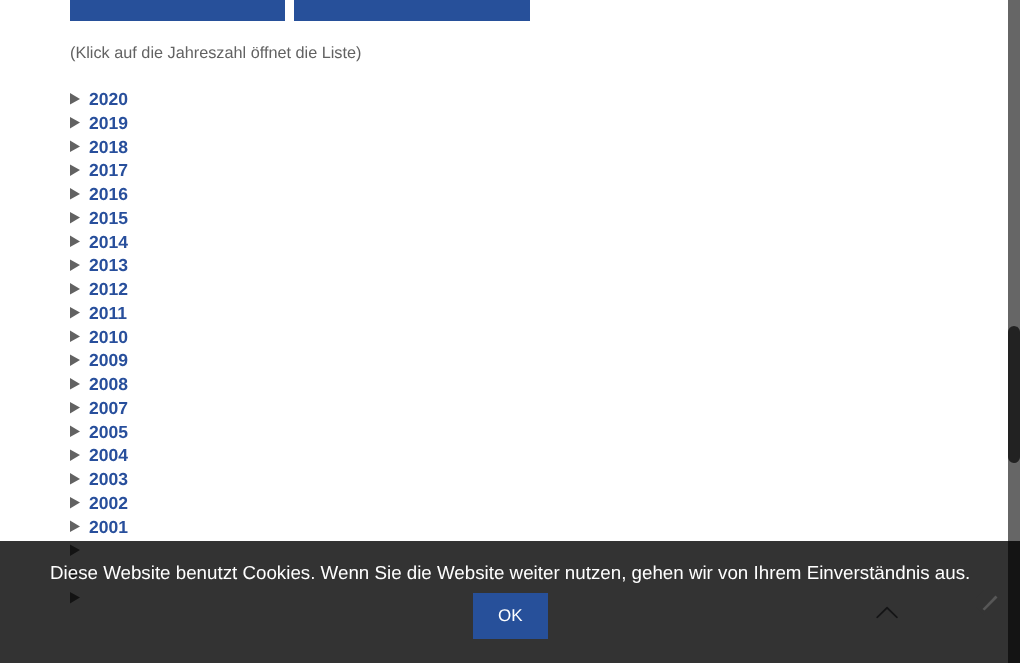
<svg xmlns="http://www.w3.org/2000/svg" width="1020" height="663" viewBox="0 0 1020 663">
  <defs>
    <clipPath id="clip1"><rect x="976" y="590" width="25" height="25"/></clipPath>
  </defs>
  <rect width="100%" height="100%" fill="rgb(255,255,255)"/>
  <rect x="70" y="0" width="215" height="21" fill="rgb(39,80,154)"/>
  <rect x="294" y="0" width="236" height="21" fill="rgb(39,80,154)"/>
  <text x="70" y="58" font-family="Liberation Sans" font-size="16.25" fill="rgb(98,98,98)">(Klick auf die Jahreszahl öffnet die Liste)</text>
  <path d="M70 93L80 99L70 104.5Z" fill="rgb(98,98,98)"/>
  <text x="89" y="105" font-family="Liberation Sans" font-size="17.5" font-weight="bold" fill="rgb(40,79,156)">2020</text>
  <path d="M70 117L80 122.5L70 128.5Z" fill="rgb(98,98,98)"/>
  <text x="89" y="129" font-family="Liberation Sans" font-size="17.5" font-weight="bold" fill="rgb(40,79,156)">2019</text>
  <path d="M70 140.5L80 146.5L70 152Z" fill="rgb(98,98,98)"/>
  <text x="89" y="153" font-family="Liberation Sans" font-size="17.5" font-weight="bold" fill="rgb(40,79,156)">2018</text>
  <path d="M70 164.5L80 170L70 176Z" fill="rgb(98,98,98)"/>
  <text x="89" y="176" font-family="Liberation Sans" font-size="17.5" font-weight="bold" fill="rgb(40,79,156)">2017</text>
  <path d="M70 188L80 194L70 199.5Z" fill="rgb(98,98,98)"/>
  <text x="89" y="200" font-family="Liberation Sans" font-size="17.5" font-weight="bold" fill="rgb(40,79,156)">2016</text>
  <path d="M70 212L80 217.5L70 223.5Z" fill="rgb(98,98,98)"/>
  <text x="89" y="224" font-family="Liberation Sans" font-size="17.5" font-weight="bold" fill="rgb(40,79,156)">2015</text>
  <path d="M70 235.5L80 241.5L70 247Z" fill="rgb(98,98,98)"/>
  <text x="89" y="248" font-family="Liberation Sans" font-size="17.5" font-weight="bold" fill="rgb(40,79,156)">2014</text>
  <path d="M70 259.5L80 265L70 271Z" fill="rgb(98,98,98)"/>
  <text x="89" y="271" font-family="Liberation Sans" font-size="17.5" font-weight="bold" fill="rgb(40,79,156)">2013</text>
  <path d="M70 283L80 289L70 294.5Z" fill="rgb(98,98,98)"/>
  <text x="89" y="295" font-family="Liberation Sans" font-size="17.5" font-weight="bold" fill="rgb(40,79,156)">2012</text>
  <path d="M70 307L80 312.5L70 318.5Z" fill="rgb(98,98,98)"/>
  <text x="89" y="319" font-family="Liberation Sans" font-size="17.5" font-weight="bold" fill="rgb(40,79,156)">2011</text>
  <path d="M70 330.5L80 336.5L70 342Z" fill="rgb(98,98,98)"/>
  <text x="89" y="343" font-family="Liberation Sans" font-size="17.5" font-weight="bold" fill="rgb(40,79,156)">2010</text>
  <path d="M70 354.5L80 360L70 366Z" fill="rgb(98,98,98)"/>
  <text x="89" y="366" font-family="Liberation Sans" font-size="17.5" font-weight="bold" fill="rgb(40,79,156)">2009</text>
  <path d="M70 378L80 384L70 389.5Z" fill="rgb(98,98,98)"/>
  <text x="89" y="390" font-family="Liberation Sans" font-size="17.5" font-weight="bold" fill="rgb(40,79,156)">2008</text>
  <path d="M70 402L80 407.5L70 413.5Z" fill="rgb(98,98,98)"/>
  <text x="89" y="414" font-family="Liberation Sans" font-size="17.5" font-weight="bold" fill="rgb(40,79,156)">2007</text>
  <path d="M70 425.5L80 431.5L70 437Z" fill="rgb(98,98,98)"/>
  <text x="89" y="438" font-family="Liberation Sans" font-size="17.5" font-weight="bold" fill="rgb(40,79,156)">2005</text>
  <path d="M70 449.5L80 455L70 461Z" fill="rgb(98,98,98)"/>
  <text x="89" y="461" font-family="Liberation Sans" font-size="17.5" font-weight="bold" fill="rgb(40,79,156)">2004</text>
  <path d="M70 473L80 479L70 484.5Z" fill="rgb(98,98,98)"/>
  <text x="89" y="485" font-family="Liberation Sans" font-size="17.5" font-weight="bold" fill="rgb(40,79,156)">2003</text>
  <path d="M70 497L80 502.5L70 508.5Z" fill="rgb(98,98,98)"/>
  <text x="89" y="509" font-family="Liberation Sans" font-size="17.5" font-weight="bold" fill="rgb(40,79,156)">2002</text>
  <path d="M70 520.5L80 526.5L70 532Z" fill="rgb(98,98,98)"/>
  <text x="89" y="533" font-family="Liberation Sans" font-size="17.5" font-weight="bold" fill="rgb(40,79,156)">2001</text>
  <path d="M70 544.5L80 550L70 556ZM70 568L80 574L70 579.5ZM70 592L80 597.5L70 603.5Z" fill="rgb(98,98,98)"/>
  <rect x="1008" y="0" width="12" height="663" fill="rgb(102,102,102)"/>
  <rect x="1008" y="326" width="12" height="137" rx="6" fill="rgb(34,34,34)"/>
  <image x="876" y="606" width="22" height="13" href="pic1.png"/>
  <rect x="0" y="541" width="1020" height="122" fill="rgba(0,0,0,0.8)"/>
  <text x="50" y="579" font-family="Liberation Sans" font-size="18.75" fill="rgb(255,255,255)">Diese Website benutzt Cookies. Wenn Sie die Website weiter nutzen, gehen wir von Ihrem Einverständnis aus.</text>
  <rect x="473" y="593" width="75" height="46" fill="rgb(39,80,154)"/>
  <text x="498" y="621" font-family="Liberation Sans" font-size="17" fill="rgb(255,255,255)">OK</text>
  <path d="M995.5 595.5L997.5 597.5L984.5 610.5L982.5 609Z" fill="rgb(90,90,90)"/>
  <g clip-path="url(#clip1)">
    <path d="M971 602.5L989 585L1006.5 602.5L989 620Z" fill="rgba(51,51,51,0.07)"/>
  </g>
</svg>
